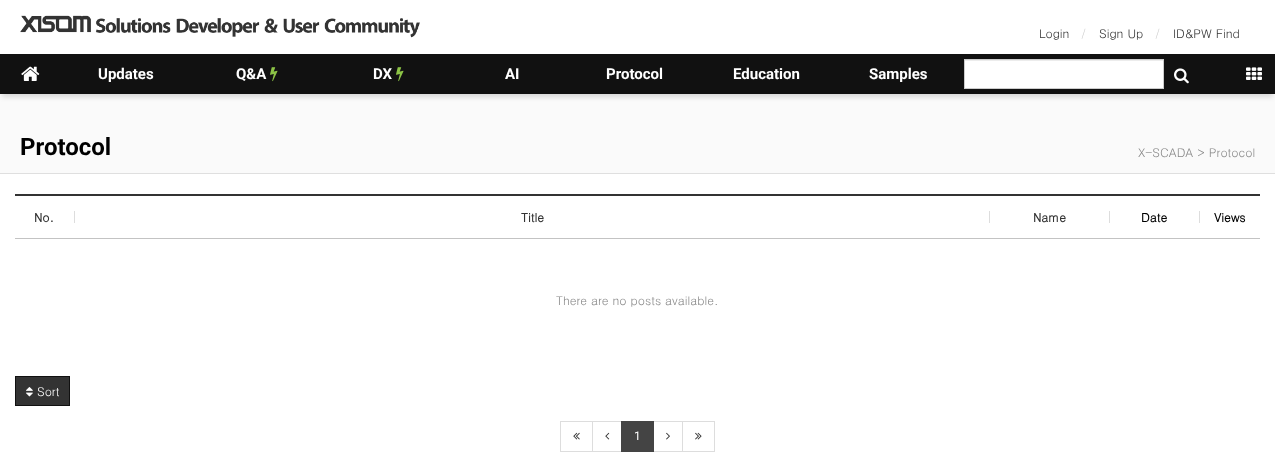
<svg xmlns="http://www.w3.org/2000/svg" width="1275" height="474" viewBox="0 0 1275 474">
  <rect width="100%" height="100%" fill="rgb(255,255,255)"/>
  <image x="20" y="15" width="400" height="23" href="pic1.png"/>
  <text x="1039" y="38" font-family="Dotum" font-size="12" fill="rgb(51,51,51)">Login</text>
  <text x="1081" y="38" font-family="Dotum" font-size="12" fill="rgb(204,204,204)">/</text>
  <text x="1099" y="38" font-family="Dotum" font-size="12" fill="rgb(51,51,51)">Sign Up</text>
  <text x="1155" y="38" font-family="Dotum" font-size="12" fill="rgb(204,204,204)">/</text>
  <text x="1173" y="38" font-family="Dotum" font-size="12" fill="rgb(51,51,51)">ID&amp;PW Find</text>
  <rect x="0" y="94" width="1275" height="79" fill="rgb(250,250,250)"/>
  <rect x="2" y="61" width="1271" height="36" fill="rgba(25,25,25,0.15)" filter="blur(2.5px)"/>
  <rect x="0" y="54" width="1275" height="40" fill="rgb(17,17,17)"/>
  <image x="21" y="66" width="19" height="15" href="pic2.png"/>
  <g font-family="Roboto" font-size="15" font-weight="bold" fill="rgb(255,255,255)">
    <text x="98" y="79">Updates</text>
    <text x="236" y="79">Q&amp;A</text>
  </g>
  <image x="270" y="67" width="8" height="15" href="pic3.png"/>
  <text x="373" y="79" font-family="Roboto" font-size="15" font-weight="bold" fill="rgb(255,255,255)">DX</text>
  <image x="396" y="67" width="8" height="15" href="pic3.png"/>
  <g font-family="Roboto" font-size="15" font-weight="bold" fill="rgb(255,255,255)">
    <text x="505" y="79">AI</text>
    <text x="606" y="79">Protocol</text>
    <text x="733" y="79">Education</text>
    <text x="869" y="79">Samples</text>
  </g>
  <rect x="965" y="61" width="198" height="27" fill="rgb(255,255,255)"/>
  <rect x="965" y="60" width="198" height="1" fill="rgb(236,236,236)"/>
  <rect x="964.5" y="59.5" width="199" height="29" fill="none" stroke="rgb(204,204,204)"/>
  <image x="1174" y="68" width="15" height="16" href="pic4.png"/>
  <image x="1246" y="67" width="16" height="13" href="pic5.png"/>
  <rect x="0" y="173" width="1275" height="1" fill="rgb(223,223,223)"/>
  <text x="20" y="155" font-family="Roboto" font-size="24" font-weight="bold" fill="rgb(0,0,0)">Protocol</text>
  <text x="1138" y="157" font-family="Dotum" font-size="12" fill="rgb(136,136,136)">X-SCADA &gt; Protocol</text>
  <rect x="15" y="194" width="1245" height="2" fill="rgb(51,51,51)"/>
  <rect x="15" y="238" width="1245" height="1" fill="rgb(195,195,195)"/>
  <rect x="74" y="211" width="1" height="12" fill="rgb(221,221,221)"/>
  <text x="34" y="222" font-family="Dotum" font-size="12" font-weight="bold" fill="rgb(51,51,51)">No.</text>
  <rect x="989" y="211" width="1" height="12" fill="rgb(221,221,221)"/>
  <text x="521" y="222" font-family="Dotum" font-size="12" font-weight="bold" fill="rgb(51,51,51)">Title</text>
  <rect x="1109" y="211" width="1" height="12" fill="rgb(221,221,221)"/>
  <text x="1033" y="222" font-family="Dotum" font-size="12" font-weight="bold" fill="rgb(51,51,51)">Name</text>
  <rect x="1199" y="211" width="1" height="12" fill="rgb(221,221,221)"/>
  <g font-family="Dotum" font-size="12" font-weight="bold" fill="rgb(0,0,0)">
    <text x="1141" y="222">Date</text>
    <text x="1214" y="222">Views</text>
  </g>
  <text x="556" y="305" font-family="Dotum" font-size="12" fill="rgb(136,136,136)">There are no posts available.</text>
  <rect x="15.5" y="376.5" width="54" height="29" fill="rgb(51,51,51)" stroke="rgb(17,17,17)"/>
  <image x="26" y="387" width="7" height="10" href="pic6.png"/>
  <text x="37" y="396" font-family="Dotum" font-size="12" fill="rgb(255,255,255)">Sort</text>
  <rect x="560.5" y="421.5" width="32" height="30" fill="none" stroke="rgb(221,221,221)"/>
  <image x="573" y="432" width="7" height="8" href="pic7.png"/>
  <rect x="592.5" y="421.5" width="29" height="30" fill="none" stroke="rgb(221,221,221)"/>
  <image x="605" y="432" width="5" height="8" href="pic8.png"/>
  <rect x="653.5" y="421.5" width="29" height="30" fill="none" stroke="rgb(221,221,221)"/>
  <rect x="621" y="421" width="33" height="31" fill="rgb(68,68,68)"/>
  <text x="634" y="440" font-family="Roboto" font-size="12" fill="rgb(255,255,255)">1</text>
  <image x="666" y="432" width="4" height="8" href="pic9.png"/>
  <rect x="682.5" y="421.5" width="32" height="30" fill="none" stroke="rgb(221,221,221)"/>
  <image x="695" y="432" width="7" height="8" href="pic10.png"/>
</svg>
